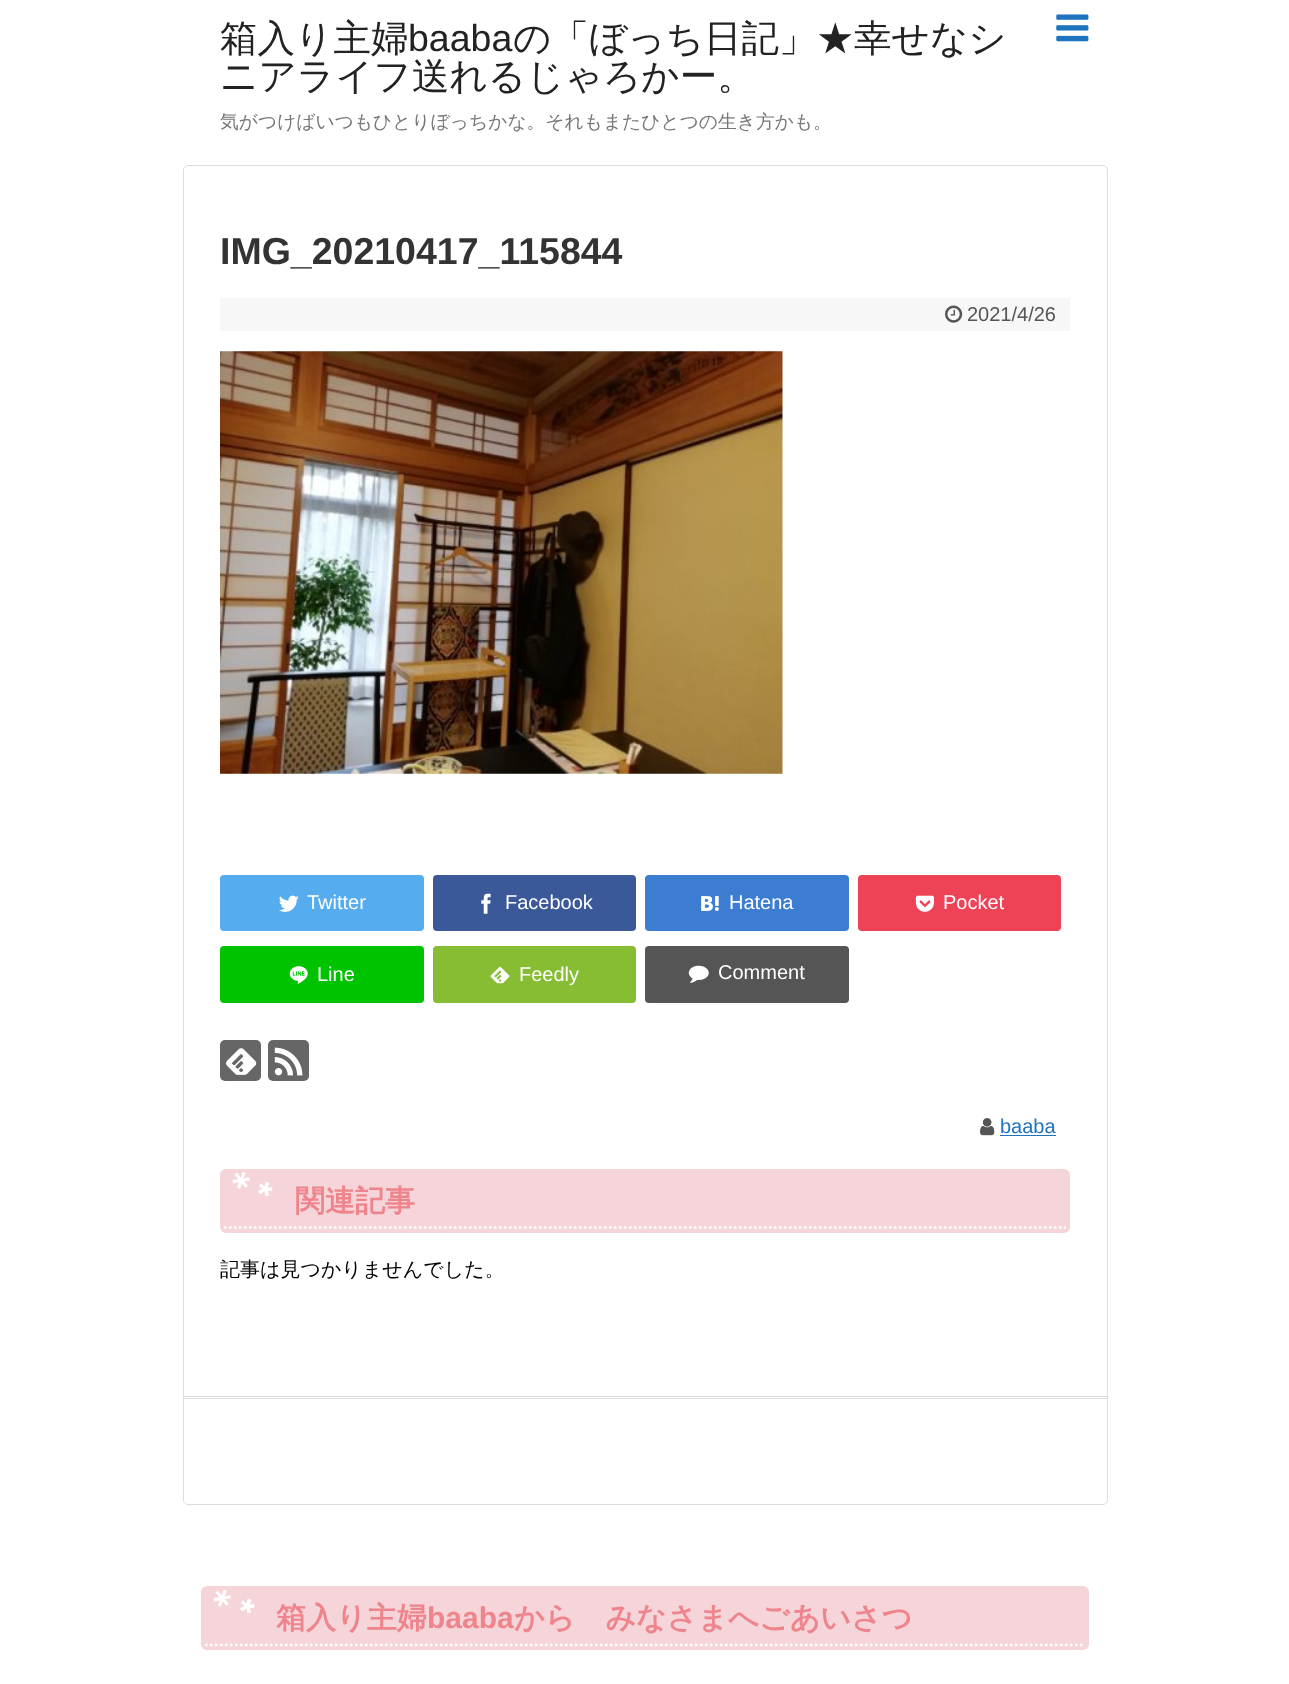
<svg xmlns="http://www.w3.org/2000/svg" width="1289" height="1684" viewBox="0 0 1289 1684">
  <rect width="100%" height="100%" fill="rgb(255,255,255)"/>
  <text x="220" y="51" font-family="WenQuanYi Zen Hei" font-size="37.5" font-weight="500" fill="rgb(34,34,34)">箱入り主婦</text>
  <text x="408" y="51" font-family="Liberation Sans" font-size="37.5" fill="rgb(34,34,34)">baaba</text>
  <g font-family="WenQuanYi Zen Hei" font-size="37.5" font-weight="500" fill="rgb(34,34,34)">
    <text x="513" y="51">の「ぼっち日記」★幸せなシ</text>
    <text x="220" y="89">ニアライフ送れるじゃろかー。</text>
  </g>
  <text x="220" y="128" font-family="WenQuanYi Zen Hei" font-size="18.75" font-weight="500" fill="rgb(119,119,119)">気がつけばいつもひとりぼっちかな。それもまたひとつの生き方かも。</text>
  <image x="1056" y="14" width="33" height="28" href="pic1.png"/>
  <rect x="183.5" y="165.5" width="924" height="1339" rx="4.5" fill="none" stroke="rgb(221,221,221)"/>
  <text x="220" y="264" font-family="Liberation Sans" font-size="37.5" font-weight="bold" fill="rgb(51,51,51)">IMG_20210417_115844</text>
  <rect x="220" y="298" width="850" height="33" fill="rgb(247,247,247)"/>
  <image x="945" y="305" width="18" height="18" href="pic2.png"/>
  <text x="967" y="321" font-family="Liberation Sans" font-size="20" fill="rgb(85,85,85)">2021/4/26</text>
  <image x="220" y="351" width="563" height="423" href="pic3.png"/>
  <rect x="220" y="875" width="204" height="56" rx="4" fill="rgb(85,172,238)"/>
  <image x="279" y="895" width="20" height="17" href="pic4.png"/>
  <text x="307" y="909" font-family="Liberation Sans" font-size="20" fill="rgb(255,255,255)">Twitter</text>
  <rect x="433" y="875" width="203" height="56" rx="4" fill="rgb(59,89,152)"/>
  <image x="481" y="893" width="10" height="21" href="pic5.png"/>
  <text x="505" y="909" font-family="Liberation Sans" font-size="20" fill="rgb(255,255,255)">Facebook</text>
  <rect x="645" y="875" width="204" height="56" rx="4" fill="rgb(60,125,209)"/>
  <image x="701" y="896" width="18" height="15" href="pic6.png"/>
  <text x="729" y="909" font-family="Liberation Sans" font-size="20" fill="rgb(255,255,255)">Hatena</text>
  <rect x="858" y="875" width="203" height="56" rx="4" fill="rgb(238,66,87)"/>
  <image x="915" y="895" width="19" height="17" href="pic7.png"/>
  <text x="943" y="909" font-family="Liberation Sans" font-size="20" fill="rgb(255,255,255)">Pocket</text>
  <rect x="220" y="946" width="204" height="57" rx="4" fill="rgb(0,195,0)"/>
  <image x="289" y="966" width="19" height="18" href="pic8.png"/>
  <text x="317" y="981" font-family="Liberation Sans" font-size="20" fill="rgb(255,255,255)">Line</text>
  <rect x="433" y="946" width="203" height="57" rx="4" fill="rgb(135,189,51)"/>
  <image x="490" y="966" width="20" height="18" href="pic9.png"/>
  <text x="519" y="981" font-family="Liberation Sans" font-size="20" fill="rgb(255,255,255)">Feedly</text>
  <rect x="645" y="946" width="204" height="57" rx="4" fill="rgb(85,85,85)"/>
  <image x="688" y="965" width="21" height="18" href="pic10.png"/>
  <text x="718" y="979" font-family="Liberation Sans" font-size="20" fill="rgb(255,255,255)">Comment</text>
  <rect x="220" y="1040" width="41" height="41" rx="5" fill="rgb(102,102,102)"/>
  <image x="226" y="1048" width="31" height="27" href="pic11.png"/>
  <rect x="268" y="1040" width="41" height="41" rx="5" fill="rgb(102,102,102)"/>
  <image x="274" y="1047" width="29" height="29" href="pic12.png"/>
  <image x="980" y="1118" width="15" height="18" href="pic13.png"/>
  <text x="1000" y="1133" font-family="Liberation Sans" font-size="20" fill="rgb(30,115,190)">baaba</text>
  <rect x="1000" y="1135" width="56" height="1" fill="rgb(30,115,190)"/>
  <rect x="220" y="1169" width="850" height="64" rx="6" fill="rgb(245,213,218)"/>
  <text x="217" y="1191" transform="rotate(20 217 1191)" font-family="WenQuanYi Zen Hei" font-size="37.5" font-weight="bold" fill="rgb(255,255,255)">＊</text>
  <text x="252" y="1204" transform="rotate(20 252 1204)" font-family="Liberation Sans" font-size="37.5" font-weight="bold" fill="rgb(255,255,255)">*</text>
  <text x="295" y="1211" font-family="WenQuanYi Zen Hei" font-size="30" font-weight="bold" fill="rgb(239,133,140)">関連記事</text>
  <path d="M224 1227.5H1066" fill="none" stroke="rgb(255,255,255)" stroke-width="2.5" stroke-dasharray="2.5 2.5"/>
  <text x="220" y="1276" font-family="WenQuanYi Zen Hei" font-size="20" font-weight="500" fill="rgb(0,0,0)">記事は見つかりませんでした。</text>
  <rect x="183" y="1396" width="925" height="1" fill="rgb(221,221,221)"/>
  <rect x="183" y="1398" width="925" height="1" fill="rgb(221,221,221)"/>
  <rect x="201" y="1586" width="888" height="64" rx="6" fill="rgb(245,213,218)"/>
  <text x="198" y="1609" transform="rotate(20 198 1609)" font-family="WenQuanYi Zen Hei" font-size="37.5" font-weight="bold" fill="rgb(255,255,255)">＊</text>
  <text x="234" y="1621" transform="rotate(20 234 1621)" font-family="Liberation Sans" font-size="37.5" font-weight="bold" fill="rgb(255,255,255)">*</text>
  <text x="276" y="1628" font-family="WenQuanYi Zen Hei" font-size="30" font-weight="bold" fill="rgb(239,133,140)">箱入り主婦</text>
  <text x="427" y="1628" font-family="Liberation Sans" font-size="30" font-weight="bold" fill="rgb(239,133,140)">baaba</text>
  <text x="514" y="1628" font-family="WenQuanYi Zen Hei" font-size="30" font-weight="bold" fill="rgb(239,133,140)">から　みなさまへごあいさつ</text>
  <path d="M205 1645H1085" fill="none" stroke="rgb(255,255,255)" stroke-width="2.5" stroke-dasharray="2.5 2.5"/>
</svg>
